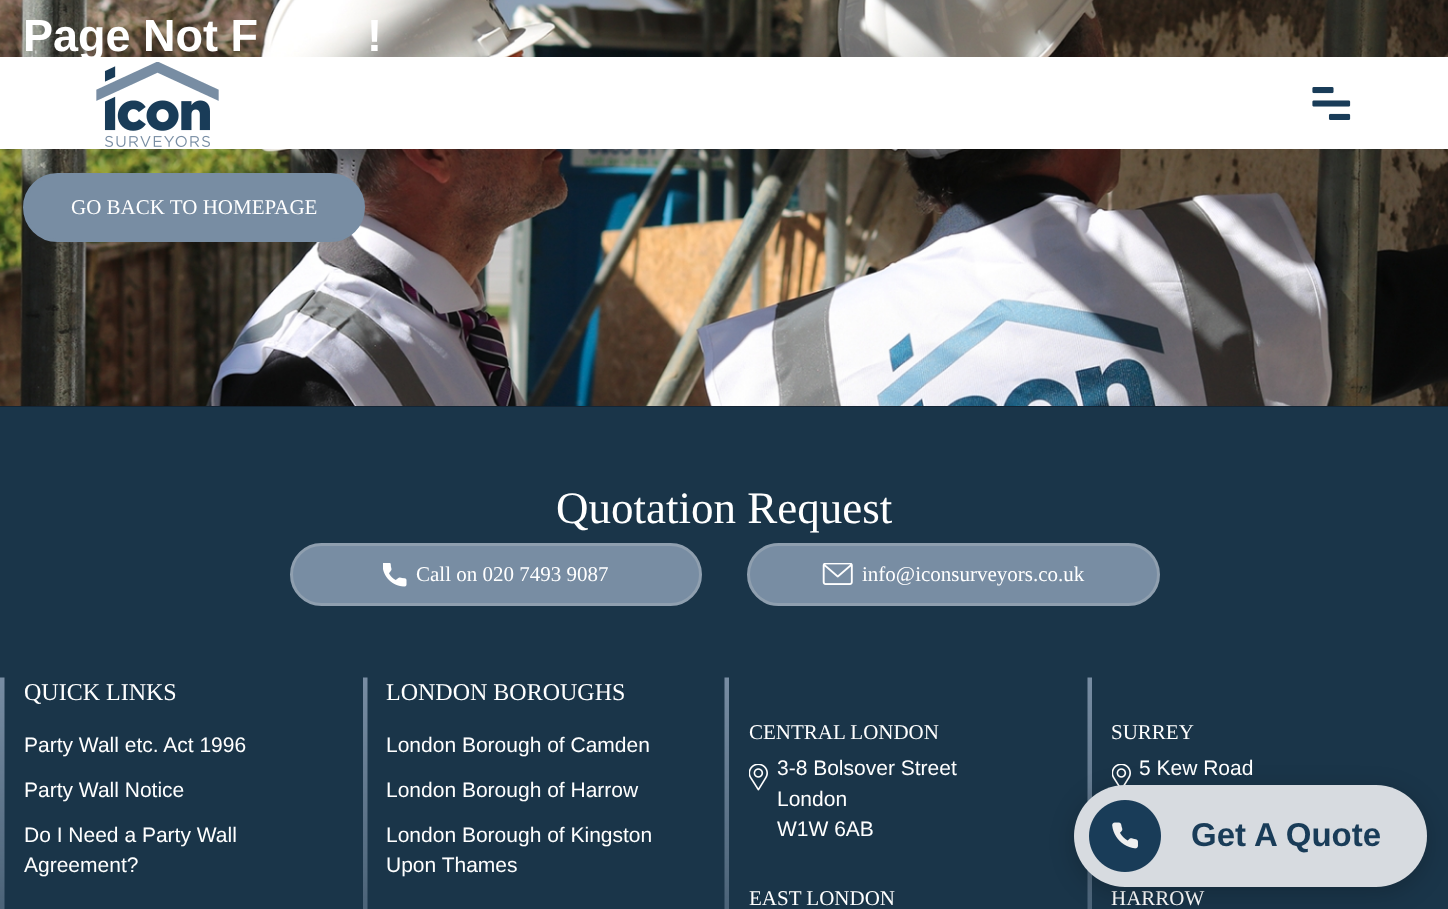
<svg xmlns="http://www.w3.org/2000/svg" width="1448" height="909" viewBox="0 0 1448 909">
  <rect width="100%" height="100%" fill="rgb(26,53,73)"/>
  <rect x="0" y="406" width="1448" height="1" fill="rgb(20,37,53)"/>
  <image x="0" y="0" width="1448" height="406" href="pic1.png"/>
  <g font-family="Liberation Sans" font-size="45" font-weight="bold" fill="rgb(255,255,255)">
    <text x="23" y="51">Page Not F</text>
    <text x="367" y="51">!</text>
  </g>
  <rect x="24.5" y="174.5" width="339" height="66" rx="33" fill="rgb(120,141,163)" stroke="rgb(120,141,163)" stroke-width="3"/>
  <text x="71" y="214" font-family="Liberation Serif" font-size="21" fill="rgb(255,255,255)">GO BACK TO HOMEPAGE</text>
  <rect x="0" y="57" width="1448" height="92" fill="rgb(255,255,255)"/>
  <image x="96" y="62" width="123" height="85" href="pic2.png"/>
  <image x="1312" y="87" width="39" height="33" href="pic3.png"/>
  <text x="556" y="523" font-family="Liberation Serif" font-size="45" fill="rgb(255,255,255)">Quotation Request</text>
  <rect x="291.5" y="544.5" width="409" height="60" rx="30" fill="rgb(120,141,163)" stroke="rgb(143,159,175)" stroke-width="3"/>
  <image x="383" y="563" width="24" height="24" href="pic4.png"/>
  <text x="416" y="581" font-family="Liberation Serif" font-size="21" fill="rgb(255,255,255)">Call on 020 7493 9087</text>
  <rect x="748.5" y="544.5" width="410" height="60" rx="30" fill="rgb(120,141,163)" stroke="rgb(143,159,175)" stroke-width="3"/>
  <image x="822" y="563" width="31" height="22" href="pic5.png"/>
  <text x="862" y="581" font-family="Liberation Serif" font-size="21" fill="rgb(255,255,255)">info@iconsurveyors.co.uk</text>
  <image x="0" y="677" width="5" height="232" href="pic6.png"/>
  <text x="24" y="700" font-family="Liberation Serif" font-size="24" fill="rgb(255,255,255)">QUICK LINKS</text>
  <g font-family="Liberation Sans" font-size="21" fill="rgb(255,255,255)">
    <text x="24" y="752">Party Wall etc. Act 1996</text>
    <text x="24" y="797">Party Wall Notice</text>
    <text>
      <tspan x="24" y="842">Do I Need a Party Wall</tspan>
      <tspan x="24" y="872">Agreement?</tspan>
    </text>
  </g>
  <image x="363" y="677" width="5" height="232" href="pic7.png"/>
  <text x="386" y="700" font-family="Liberation Serif" font-size="24" fill="rgb(255,255,255)">LONDON BOROUGHS</text>
  <g font-family="Liberation Sans" font-size="21" fill="rgb(255,255,255)">
    <text x="386" y="752">London Borough of Camden</text>
    <text x="386" y="797">London Borough of Harrow</text>
    <text>
      <tspan x="386" y="842">London Borough of Kingston</tspan>
      <tspan x="386" y="872">Upon Thames</tspan>
    </text>
  </g>
  <image x="724" y="677" width="5" height="232" href="pic8.png"/>
  <text x="749" y="739" font-family="Liberation Serif" font-size="21" fill="rgb(255,255,255)">CENTRAL LONDON</text>
  <image x="749" y="764" width="19" height="27" href="pic9.png"/>
  <g font-family="Liberation Sans" font-size="21" fill="rgb(255,255,255)">
    <text>
      <tspan x="777" y="775">3-8 Bolsover Street</tspan>
      <tspan x="777" y="806">London</tspan>
      <tspan x="777" y="836">W1W 6AB</tspan>
    </text>
  </g>
  <text x="749" y="905" font-family="Liberation Serif" font-size="21" fill="rgb(255,255,255)">EAST LONDON</text>
  <image x="1087" y="677" width="5" height="232" href="pic10.png"/>
  <text x="1111" y="739" font-family="Liberation Serif" font-size="21" fill="rgb(255,255,255)">SURREY</text>
  <image x="1112" y="764" width="19" height="22" href="pic11.png"/>
  <text x="1139" y="775" font-family="Liberation Sans" font-size="21" fill="rgb(255,255,255)">5 Kew Road</text>
  <text x="1111" y="905" font-family="Liberation Serif" font-size="21" fill="rgb(255,255,255)">HARROW</text>
  <rect x="1074" y="791" width="353" height="102" rx="51" fill="rgba(0,0,0,0.2)" filter="blur(12px)"/>
  <rect x="1074" y="785" width="353" height="102" rx="51" fill="rgb(215,219,224)"/>
  <image x="1089" y="800" width="72" height="72" href="pic12.png"/>
  <text x="1191" y="846" font-family="Liberation Sans" font-size="33" font-weight="bold" fill="rgb(25,60,88)">Get A Quote</text>
</svg>
